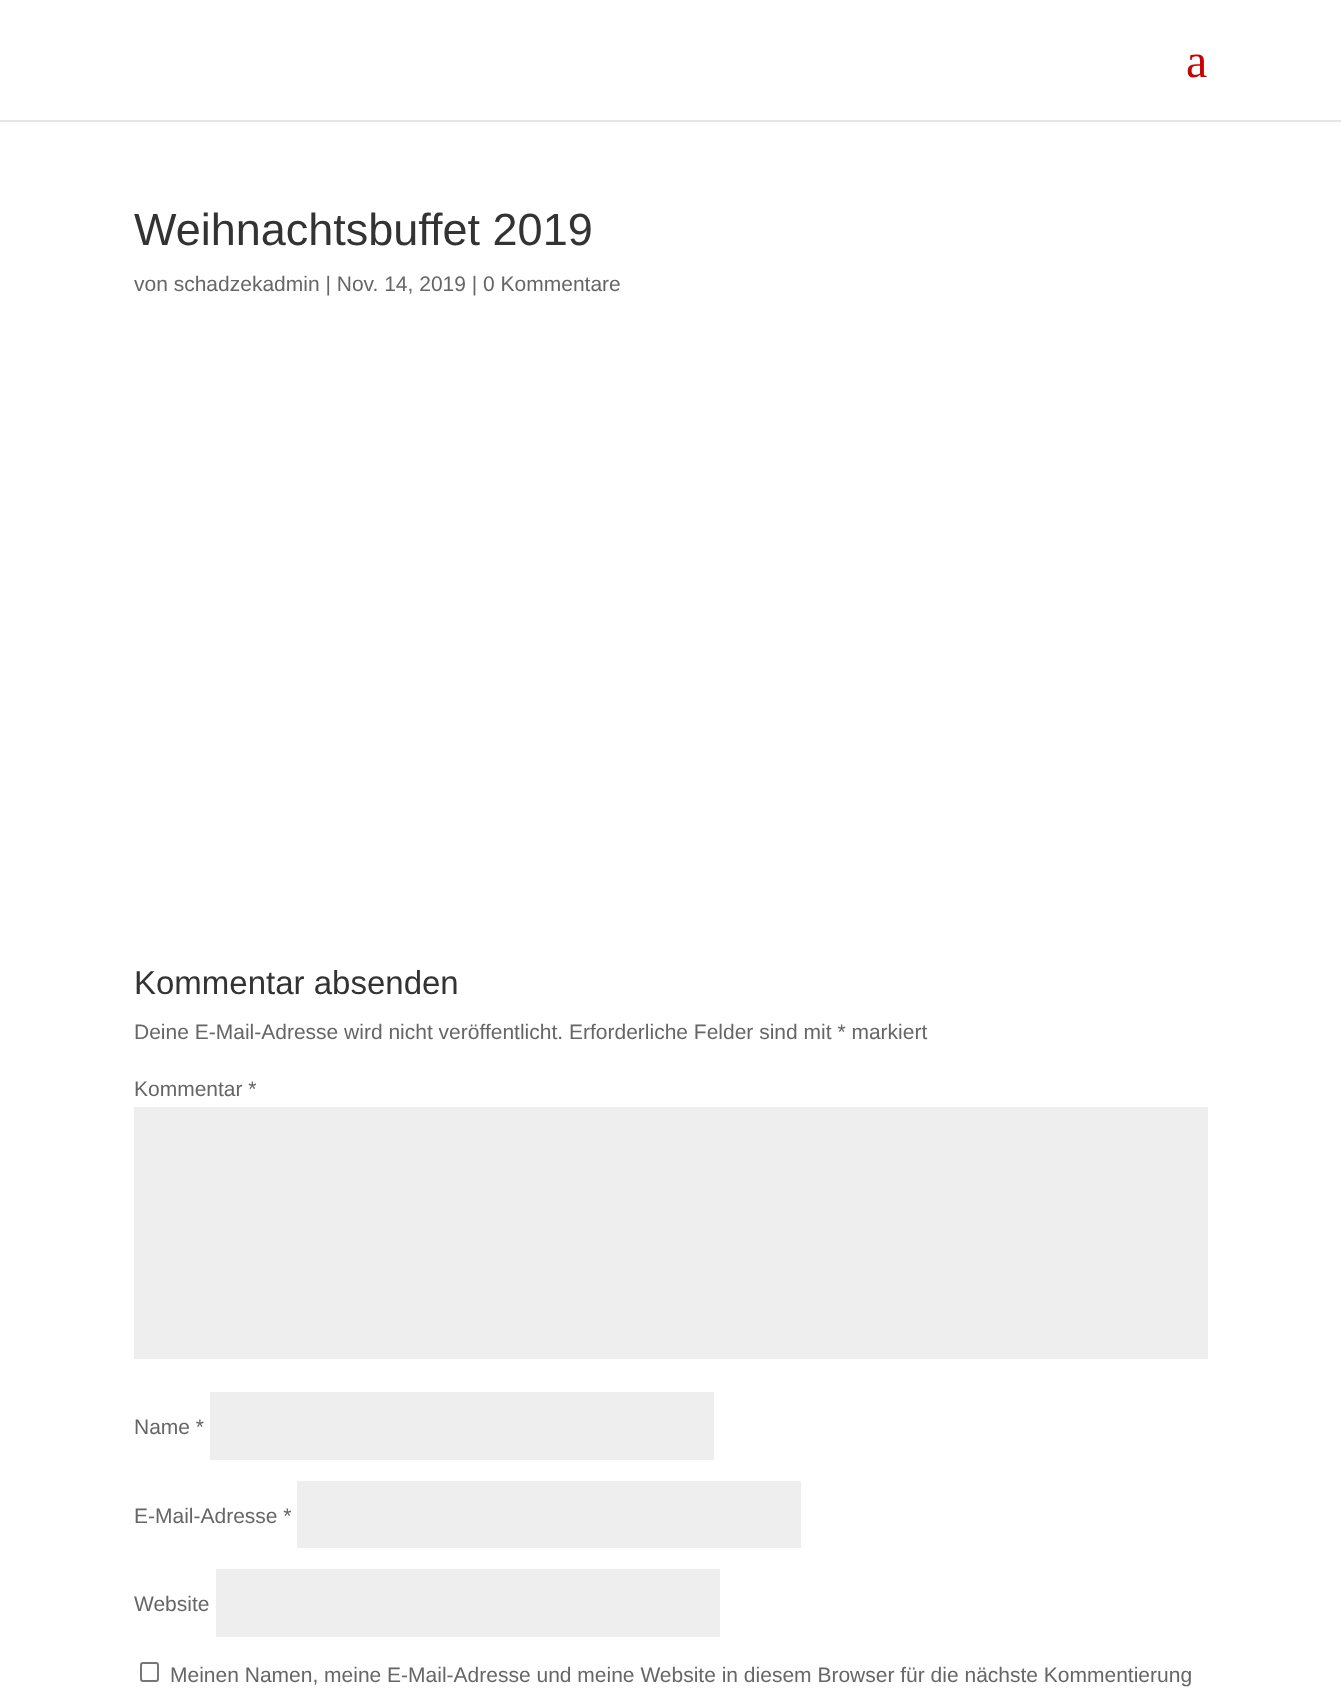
<svg xmlns="http://www.w3.org/2000/svg" width="1341" height="1700" viewBox="0 0 1341 1700">
  <rect width="100%" height="100%" fill="rgb(255,255,255)"/>
  <rect x="0" y="120" width="1341" height="2" fill="rgb(230,230,230)"/>
  <text x="1186" y="77" font-family="Liberation Serif" font-size="48" fill="rgb(204,0,0)">a</text>
  <text x="134" y="245" font-family="Liberation Sans" font-size="45" fill="rgb(51,51,51)">Weihnachtsbuffet 2019</text>
  <text x="134" y="291" font-family="Liberation Sans" font-size="21" fill="rgb(102,102,102)">von schadzekadmin | Nov. 14, 2019 | 0 Kommentare</text>
  <text x="134" y="994" font-family="Liberation Sans" font-size="33" fill="rgb(51,51,51)">Kommentar absenden</text>
  <g font-family="Liberation Sans" font-size="21" fill="rgb(102,102,102)">
    <text x="134" y="1039">Deine E-Mail-Adresse wird nicht veröffentlicht. Erforderliche Felder sind mit * markiert</text>
    <text x="134" y="1096">Kommentar *</text>
  </g>
  <rect x="134" y="1107" width="1074" height="252" fill="rgb(238,238,238)"/>
  <text x="134" y="1434" font-family="Liberation Sans" font-size="21" fill="rgb(102,102,102)">Name *</text>
  <rect x="210" y="1392" width="504" height="68" fill="rgb(238,238,238)"/>
  <text x="134" y="1523" font-family="Liberation Sans" font-size="21" fill="rgb(102,102,102)">E-Mail-Adresse *</text>
  <rect x="297" y="1481" width="504" height="67" fill="rgb(238,238,238)"/>
  <text x="134" y="1611" font-family="Liberation Sans" font-size="21" fill="rgb(102,102,102)">Website</text>
  <rect x="216" y="1569" width="504" height="68" fill="rgb(238,238,238)"/>
  <rect x="141" y="1663" width="17" height="18" rx="2" fill="none" stroke="rgb(118,118,118)" stroke-width="2"/>
  <text x="170" y="1682" font-family="Liberation Sans" font-size="21" fill="rgb(102,102,102)">Meinen Namen, meine E-Mail-Adresse und meine Website in diesem Browser für die nächste Kommentierung</text>
</svg>
